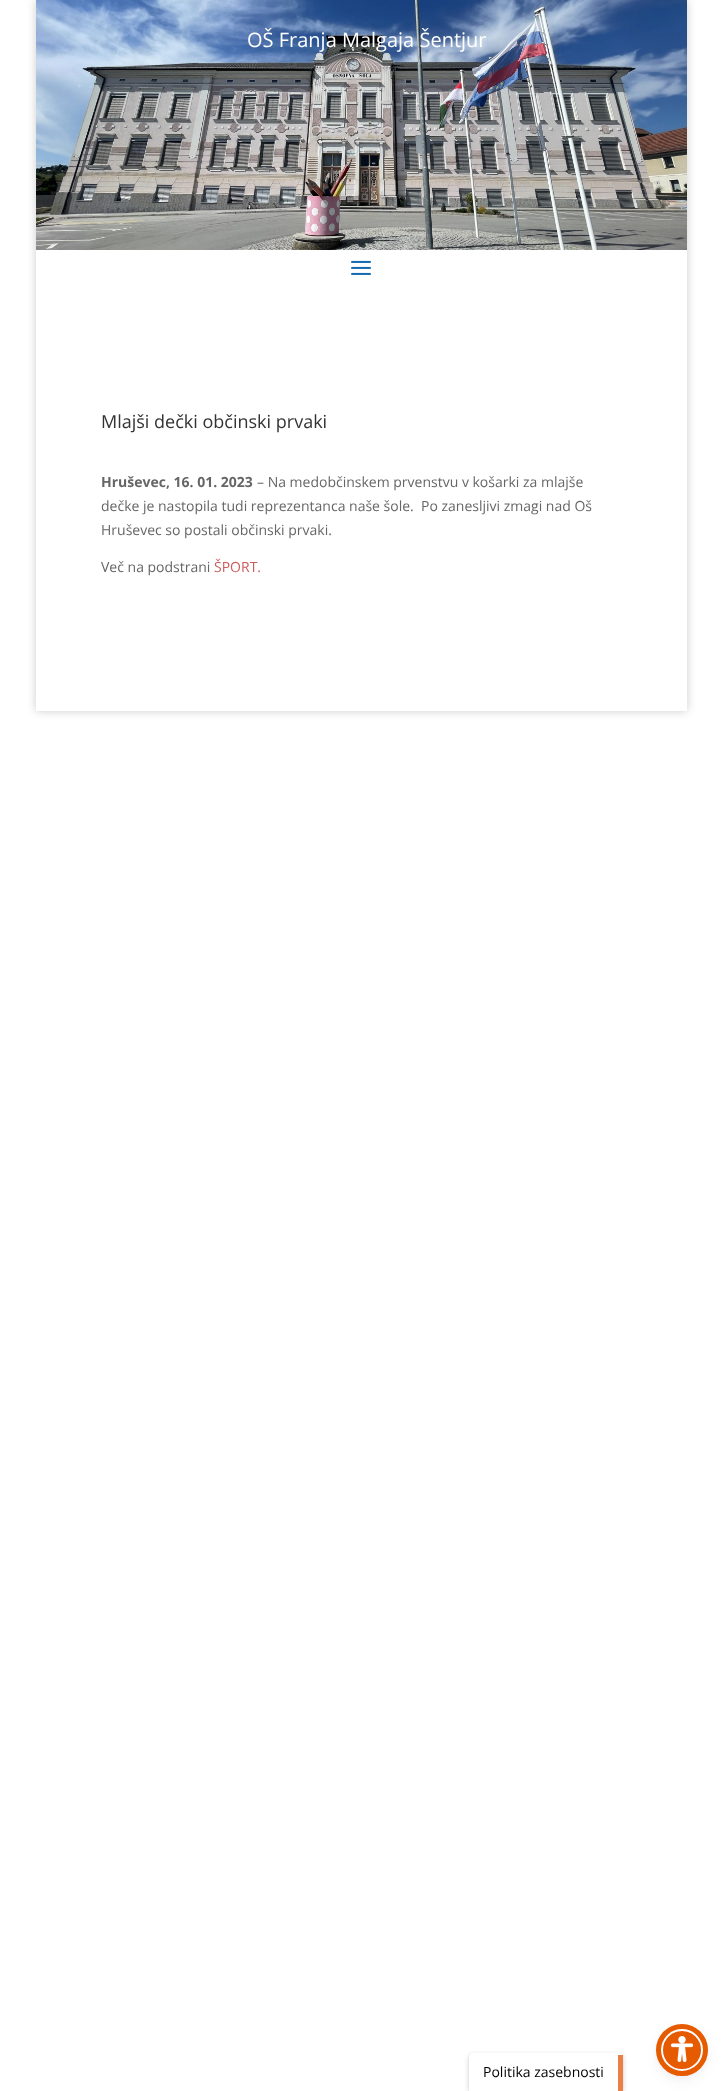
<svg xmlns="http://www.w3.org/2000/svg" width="723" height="2091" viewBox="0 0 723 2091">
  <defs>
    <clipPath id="clip1"><path d="M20 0H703V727H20ZM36 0H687V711H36Z" clip-rule="evenodd"/></clipPath>
  </defs>
  <rect width="100%" height="100%" fill="rgb(255,255,255)"/>
  <g clip-path="url(#clip1)">
    <rect x="36" y="0" width="651" height="711" fill="rgba(0,0,0,0.2)" filter="blur(5px)"/>
  </g>
  <image x="36" y="0" width="651" height="250" href="pic1.png"/>
  <text x="247" y="47" font-family="Open Sans" font-size="20" fill="rgb(255,255,255)">OŠ Franja Malgaja Šentjur</text>
  <image x="351" y="260" width="20" height="15" href="pic2.png"/>
  <text x="101" y="428" font-family="Open Sans" font-size="18" fill="rgb(51,51,51)">Mlajši dečki občinski prvaki</text>
  <text x="101" y="487" font-family="Open Sans" font-size="14" font-weight="bold" fill="rgb(102,102,102)">Hruševec, 16. 01. 2023</text>
  <g font-family="Open Sans" font-size="14" fill="rgb(102,102,102)">
    <text x="257" y="487">– Na medobčinskem prvenstvu v košarki za mlajše</text>
    <text xml:space="preserve"><tspan x="101" y="511">dečke je nastopila tudi reprezentanca naše šole.  Po zanesljivi zmagi nad Oš</tspan><tspan x="101" y="535">Hruševec so postali občinski prvaki.</tspan></text>
    <text x="101" y="572">Več na podstrani</text>
  </g>
  <text x="214" y="572" font-family="Open Sans" font-size="14" fill="rgb(205,92,92)">ŠPORT.</text>
  <rect x="469" y="2055" width="154" height="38" rx="4" fill="rgba(0,0,0,0.2)" filter="blur(2.5px)"/>
  <path d="M473 2053H619C621 2053 623 2055 623 2057V2091H469V2057C469 2055 471 2053 473 2053Z" fill="rgb(255,255,255)"/>
  <rect x="618" y="2055" width="5" height="36" fill="rgb(236,127,67)"/>
  <text x="483" y="2077" font-family="Open Sans" font-size="14" fill="rgb(0,0,0)">Politika zasebnosti</text>
  <rect x="661" y="2031" width="42" height="42" rx="21" fill="rgba(93,100,148,0.2)" filter="blur(2px)"/>
  <rect x="661" y="2034" width="42" height="42" rx="21" fill="rgba(37,44,97,0.15)" filter="blur(7.5px)"/>
  <circle cx="682" cy="2050" r="20" fill="rgb(230,90,0)" stroke="rgb(255,255,255)" stroke-width="2"/>
  <circle cx="682" cy="2050" r="23.5" fill="none" stroke="rgb(230,90,0)" stroke-width="5"/>
  <image x="670" y="2036" width="24" height="26" href="pic3.png"/>
</svg>
